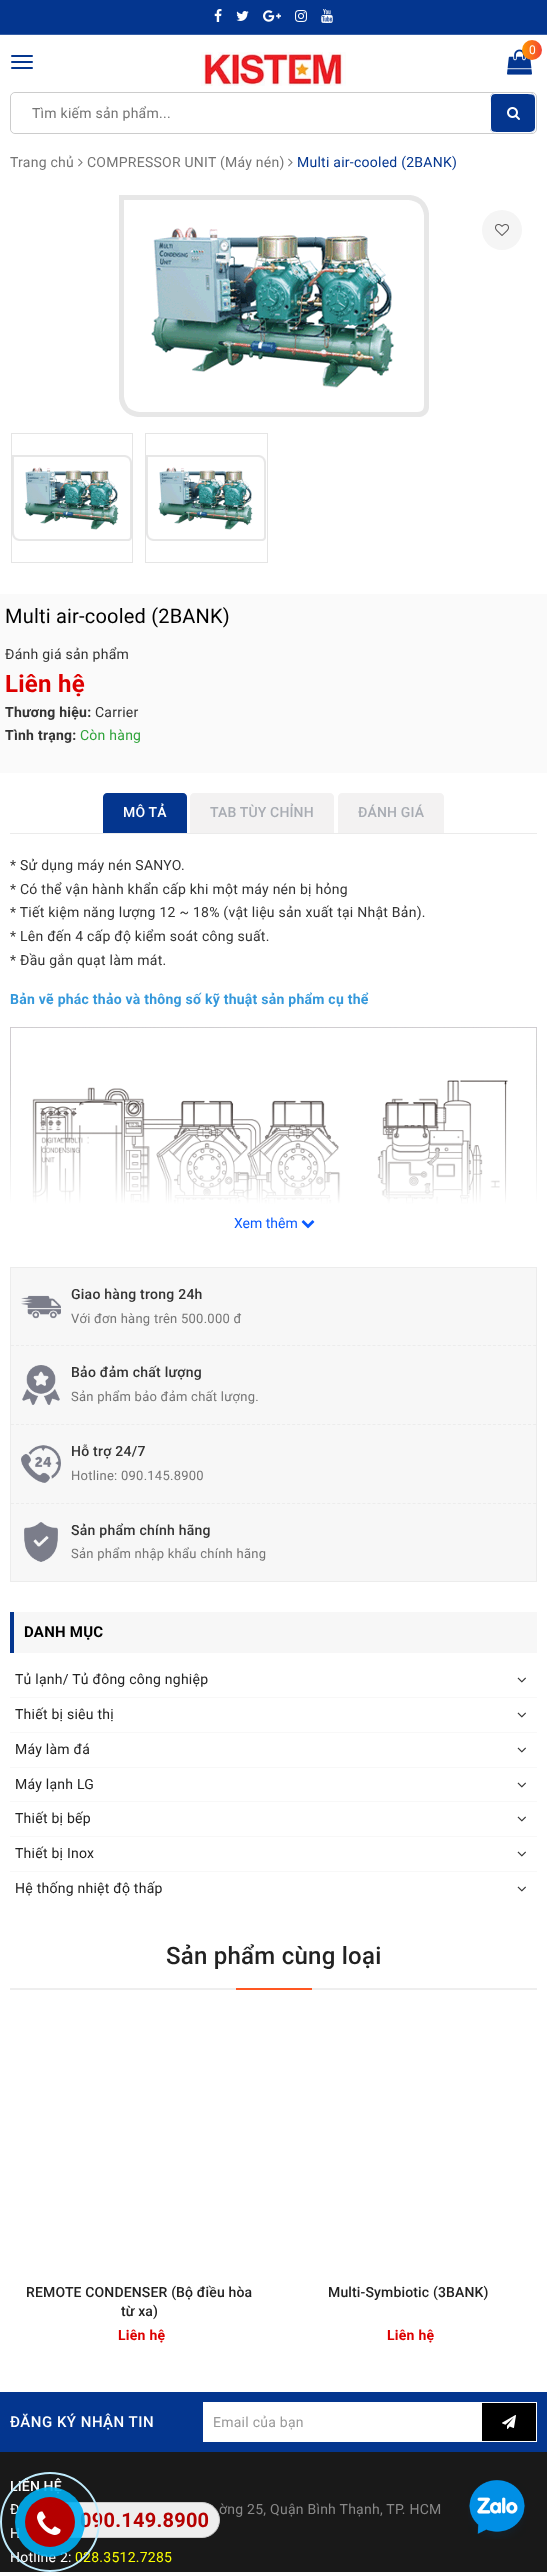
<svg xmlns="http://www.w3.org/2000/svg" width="547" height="2572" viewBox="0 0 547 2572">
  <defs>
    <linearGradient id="g1" gradientUnits="userSpaceOnUse" x1="522" y1="50" x2="542" y2="50"><stop offset="0" stop-color="rgb(255,152,0)"/><stop offset="1" stop-color="rgb(244,67,54)"/></linearGradient>
  </defs>
  <rect width="100%" height="100%" fill="rgb(255,255,255)"/>
  <rect x="0" y="0" width="547" height="34" fill="rgb(4,54,143)"/>
  <rect x="0" y="34" width="547" height="1" fill="rgb(54,94,165)"/>
  <image x="214" y="9" width="8" height="13" href="pic1.png"/>
  <image x="236" y="11" width="13" height="10" href="pic2.png"/>
  <image x="263" y="10" width="18" height="12" href="pic3.png"/>
  <image x="295" y="10" width="12" height="12" href="pic4.png"/>
  <image x="321" y="9" width="12" height="14" href="pic5.png"/>
  <image x="507" y="49" width="25" height="26" href="pic6.png"/>
  <circle cx="532" cy="50" r="10" fill="url(#g1)"/>
  <text x="529" y="54" font-family="Roboto" font-size="12" letter-spacing="0.25" fill="rgb(255,255,255)">0</text>
  <rect x="11" y="55" width="22" height="2" rx="1" fill="rgb(4,54,143)"/>
  <rect x="11" y="61" width="22" height="2" rx="1" fill="rgb(4,54,143)"/>
  <rect x="11" y="67" width="22" height="2" rx="1" fill="rgb(4,54,143)"/>
  <image x="201" y="52" width="145" height="34" href="pic7.png"/>
  <rect x="10.5" y="92.5" width="526" height="41" rx="4.5" fill="none" stroke="rgb(204,204,204)"/>
  <rect x="11.5" y="93.5" width="524" height="39" rx="4.5" fill="rgb(255,255,255)" stroke="rgb(255,255,255)"/>
  <text x="32" y="118" font-family="Roboto" font-size="14" letter-spacing="0.25" fill="rgb(117,117,117)">Tìm kiếm sản phẩm...</text>
  <rect x="490" y="93" width="45" height="40" rx="5" fill="rgb(4,54,143)"/>
  <path d="M495 93H530C533 93 535 95 535 98V128C535 131 533 133 530 133H495C492 133 490 131 490 128V98C490 95 492 93 495 93ZM495 94H524C537 94 535 95 535 108C535 135 540 132 512 132H501C491 132 491 132 491 123V103C491 100 490 94 495 94Z" fill="rgb(255,255,255)" fill-rule="evenodd"/>
  <image x="507" y="107" width="13" height="13" href="pic8.png"/>
  <text x="10" y="167" font-family="Roboto" font-size="14" letter-spacing="0.25" fill="rgb(117,117,117)">Trang chủ</text>
  <image x="78" y="158" width="5" height="9" href="pic9.png"/>
  <text x="87" y="167" font-family="Roboto" font-size="14" letter-spacing="0.25" fill="rgb(117,117,117)">COMPRESSOR UNIT (Máy nén)</text>
  <image x="288" y="158" width="5" height="9" href="pic9.png"/>
  <text x="297" y="167" font-family="Roboto" font-size="14" letter-spacing="0.25" fill="rgb(4,54,143)">Multi air-cooled (2BANK)</text>
  <image x="119" y="195" width="310" height="222" href="pic10.png"/>
  <circle cx="502" cy="230" r="20" fill="rgb(245,245,245)"/>
  <image x="495" y="224" width="14" height="12" href="pic11.png"/>
  <rect x="11.5" y="433.5" width="121" height="129" fill="none" stroke="rgb(229,229,229)"/>
  <image x="12" y="455" width="120" height="86" href="pic12.png"/>
  <rect x="145.5" y="433.5" width="122" height="129" fill="none" stroke="rgb(229,229,229)"/>
  <image x="146" y="455" width="120" height="86" href="pic12.png"/>
  <rect x="0" y="594" width="547" height="179" fill="rgb(250,250,250)"/>
  <text x="5" y="623" font-family="Roboto" font-size="20" letter-spacing="0.2" fill="rgb(0,0,0)">Multi air-cooled (2BANK)</text>
  <text x="5" y="659" font-family="Roboto" font-size="14" letter-spacing="0.25" fill="rgb(51,51,51)">Đánh giá sản phẩm</text>
  <text x="5" y="692" font-family="Roboto" font-size="24" font-weight="bold" letter-spacing="0.25" fill="rgb(221,0,0)">Liên hệ</text>
  <text x="5" y="717" font-family="Roboto" font-size="14" font-weight="bold" letter-spacing="0.25" fill="rgb(51,51,51)">Thương hiệu:</text>
  <text x="95" y="717" font-family="Roboto" font-size="14" letter-spacing="0.25" fill="rgb(51,51,51)">Carrier</text>
  <text x="5" y="740" font-family="Roboto" font-size="14" font-weight="bold" letter-spacing="0.25" fill="rgb(51,51,51)">Tình trạng:</text>
  <text x="80" y="740" font-family="Roboto" font-size="14" letter-spacing="0.25" fill="rgb(48,164,59)">Còn hàng</text>
  <rect x="10" y="833" width="527" height="1" fill="rgb(235,235,235)"/>
  <path d="M107 793H183C185 793 187 795 187 797V833H103V797C103 795 105 793 107 793Z" fill="rgb(4,54,143)"/>
  <text x="123" y="817" font-family="Roboto" font-size="14" font-weight="500" letter-spacing="0.15" fill="rgb(255,255,255)">MÔ TẢ</text>
  <path d="M194 793H330C332 793 334 795 334 797V833H190V797C190 795 192 793 194 793Z" fill="rgb(243,242,242)"/>
  <text x="210" y="817" font-family="Roboto" font-size="14" font-weight="500" letter-spacing="0.15" fill="rgb(168,172,179)">TAB TÙY CHỈNH</text>
  <path d="M342 793H440C442 793 444 795 444 797V833H338V797C338 795 340 793 342 793Z" fill="rgb(243,242,242)"/>
  <text x="358" y="817" font-family="Roboto" font-size="14" font-weight="500" letter-spacing="0.15" fill="rgb(168,172,179)">ĐÁNH GIÁ</text>
  <g font-family="Roboto" font-size="14" letter-spacing="0.25" fill="rgb(51,51,51)">
    <text>
      <tspan x="10" y="870">* Sử dụng máy nén SANYO.</tspan>
      <tspan x="10" y="894">* Có thể vận hành khẩn cấp khi một máy nén bị hỏng</tspan>
      <tspan x="10" y="917">* Tiết kiệm năng lượng 12 ~ 18% (vật liệu sản xuất tại Nhật Bản).</tspan>
      <tspan x="10" y="941">* Lên đến 4 cấp độ kiểm soát công suất.</tspan>
      <tspan x="10" y="965">* Đầu gắn quạt làm mát.</tspan>
    </text>
  </g>
  <text x="10" y="1004" font-family="Roboto" font-size="14" font-weight="bold" letter-spacing="0.25" fill="rgb(52,152,219)">Bản vẽ phác thảo và thông số kỹ thuật sản phẩm cụ thể</text>
  <image x="10" y="1027" width="527" height="177" href="pic13.png"/>
  <text x="234" y="1228" font-family="Roboto" font-size="14" fill="rgb(10,91,255)">Xem thêm</text>
  <image x="301" y="1220" width="14" height="9" href="pic14.png"/>
  <rect x="10.5" y="1267.5" width="526" height="314" fill="rgb(247,247,247)" stroke="rgb(236,236,236)"/>
  <path d="M11 1345.5H536" fill="none" stroke="rgb(236,236,236)" stroke-dasharray="3 2.02"/>
  <image x="21" y="1295" width="40" height="24" href="pic15.png"/>
  <text x="71" y="1299" font-family="Roboto" font-size="14" font-weight="500" letter-spacing="0.25" fill="rgb(51,51,51)">Giao hàng trong 24h</text>
  <text x="71" y="1323" font-family="Roboto" font-size="13" letter-spacing="0.25" fill="rgb(117,117,117)">Với đơn hàng trên 500.000 đ</text>
  <path d="M11 1424.5H536" fill="none" stroke="rgb(236,236,236)" stroke-dasharray="3 2.02"/>
  <image x="22" y="1365" width="38" height="40" href="pic16.png"/>
  <text x="71" y="1377" font-family="Roboto" font-size="14" font-weight="500" letter-spacing="0.25" fill="rgb(51,51,51)">Bảo đảm chất lượng</text>
  <text x="71" y="1401" font-family="Roboto" font-size="13" letter-spacing="0.25" fill="rgb(117,117,117)">Sản phẩm bảo đảm chất lượng.</text>
  <path d="M11 1503.5H536" fill="none" stroke="rgb(236,236,236)" stroke-dasharray="3 2.02"/>
  <image x="21" y="1445" width="40" height="38" href="pic17.png"/>
  <text x="71" y="1456" font-family="Roboto" font-size="14" font-weight="500" letter-spacing="0.25" fill="rgb(51,51,51)">Hỗ trợ 24/7</text>
  <text x="71" y="1480" font-family="Roboto" font-size="13" letter-spacing="0.25" fill="rgb(117,117,117)">Hotline: 090.145.8900</text>
  <image x="24" y="1522" width="34" height="40" href="pic18.png"/>
  <text x="71" y="1535" font-family="Roboto" font-size="14" font-weight="500" letter-spacing="0.25" fill="rgb(51,51,51)">Sản phẩm chính hãng</text>
  <text x="71" y="1558" font-family="Roboto" font-size="13" letter-spacing="0.25" fill="rgb(117,117,117)">Sản phẩm nhập khẩu chính hãng</text>
  <rect x="14" y="1612" width="523" height="41" fill="rgb(247,247,247)"/>
  <rect x="10" y="1612" width="4" height="41" fill="rgb(4,54,143)"/>
  <text x="24" y="1637" font-family="Roboto" font-size="15" font-weight="bold" letter-spacing="0.25" fill="rgb(0,0,0)">DANH MỤC</text>
  <rect x="10" y="1697" width="527" height="1" fill="rgb(248,248,248)"/>
  <text x="15" y="1684" font-family="Roboto" font-size="14" letter-spacing="0.25" fill="rgb(34,34,34)">Tủ lạnh/ Tủ đông công nghiệp</text>
  <image x="517" y="1677" width="9" height="6" href="pic19.png"/>
  <rect x="10" y="1732" width="527" height="1" fill="rgb(248,248,248)"/>
  <text x="15" y="1719" font-family="Roboto" font-size="14" letter-spacing="0.25" fill="rgb(34,34,34)">Thiết bị siêu thị</text>
  <image x="517" y="1712" width="9" height="6" href="pic19.png"/>
  <rect x="10" y="1767" width="527" height="1" fill="rgb(248,248,248)"/>
  <text x="15" y="1754" font-family="Roboto" font-size="14" letter-spacing="0.25" fill="rgb(34,34,34)">Máy làm đá</text>
  <image x="517" y="1747" width="9" height="6" href="pic19.png"/>
  <rect x="10" y="1801" width="527" height="1" fill="rgb(248,248,248)"/>
  <text x="15" y="1789" font-family="Roboto" font-size="14" letter-spacing="0.25" fill="rgb(34,34,34)">Máy lạnh LG</text>
  <image x="517" y="1782" width="9" height="6" href="pic19.png"/>
  <rect x="10" y="1836" width="527" height="1" fill="rgb(248,248,248)"/>
  <text x="15" y="1823" font-family="Roboto" font-size="14" letter-spacing="0.25" fill="rgb(34,34,34)">Thiết bị bếp</text>
  <image x="517" y="1816" width="9" height="6" href="pic19.png"/>
  <rect x="10" y="1871" width="527" height="1" fill="rgb(248,248,248)"/>
  <text x="15" y="1858" font-family="Roboto" font-size="14" letter-spacing="0.25" fill="rgb(34,34,34)">Thiết bị Inox</text>
  <image x="517" y="1851" width="9" height="6" href="pic19.png"/>
  <text x="15" y="1893" font-family="Roboto" font-size="14" letter-spacing="0.25" fill="rgb(34,34,34)">Hệ thống nhiệt độ thấp</text>
  <image x="517" y="1886" width="9" height="6" href="pic19.png"/>
  <rect x="10" y="1988" width="527" height="2" fill="rgb(238,238,238)"/>
  <text x="166" y="1964" font-family="Roboto" font-size="24" font-weight="500" letter-spacing="0.25" fill="rgb(34,34,34)">Sản phẩm cùng loại</text>
  <rect x="236" y="1988" width="76" height="2" fill="rgb(255,87,34)"/>
  <g font-family="Roboto" font-size="14" font-weight="500" letter-spacing="0.15" fill="rgb(34,34,34)">
    <text x="26" y="2297">REMOTE CONDENSER (Bộ điều hòa</text>
    <text x="121" y="2316">từ xa)</text>
  </g>
  <text x="118" y="2340" font-family="Roboto" font-size="14" font-weight="bold" letter-spacing="0.25" fill="rgb(221,0,0)">Liên hệ</text>
  <text x="328" y="2297" font-family="Roboto" font-size="14" font-weight="500" letter-spacing="0.15" fill="rgb(34,34,34)">Multi-Symbiotic (3BANK)</text>
  <text x="387" y="2340" font-family="Roboto" font-size="14" font-weight="bold" letter-spacing="0.25" fill="rgb(221,0,0)">Liên hệ</text>
  <rect x="0" y="2392" width="547" height="60" fill="rgb(4,54,143)"/>
  <text x="10" y="2427" font-family="Roboto" font-size="15" font-weight="500" letter-spacing="0.5" fill="rgb(255,255,255)">ĐĂNG KÝ NHẬN TIN</text>
  <rect x="203" y="2402" width="278" height="40" fill="rgb(255,255,255)"/>
  <text x="213" y="2427" font-family="Roboto" font-size="14" letter-spacing="0.25" fill="rgb(153,153,153)">Email của bạn</text>
  <rect x="481.5" y="2402.5" width="55" height="39" fill="rgb(0,0,0)" stroke="rgb(255,255,255)"/>
  <image x="502" y="2415" width="14" height="14" href="pic20.png"/>
  <rect x="0" y="2452" width="547" height="120" fill="rgb(25,25,25)"/>
  <text x="10" y="2491" font-family="Roboto" font-size="14" font-weight="500" letter-spacing="0.15" fill="rgb(255,255,255)">LIÊN HỆ</text>
  <text x="10" y="2514" font-family="Roboto" font-size="14" letter-spacing="0.25" fill="rgb(255,255,255)">Đ</text>
  <text x="219" y="2514" font-family="Roboto" font-size="14" letter-spacing="0.25" fill="rgb(136,136,136)">ờng 25, Quận Bình Thạnh, TP. HCM</text>
  <g font-family="Roboto" font-size="14" letter-spacing="0.25" fill="rgb(255,255,255)">
    <text>
      <tspan x="10" y="2538">H</tspan>
      <tspan x="10" y="2562">Hotline 2:</tspan>
    </text>
  </g>
  <text x="75" y="2562" font-family="Roboto" font-size="14" letter-spacing="0.25" fill="rgb(251,255,0)">028.3512.7285</text>
  <image x="468" y="2480" width="58" height="59" href="pic21.png"/>
  <rect x="39.5" y="2502.5" width="180" height="35" rx="17.5" fill="rgb(238,238,238)" stroke="rgb(204,204,204)"/>
  <text x="80" y="2527" font-family="Roboto" font-size="20" font-weight="bold" letter-spacing="0.25" fill="rgb(181,0,0)">090.149.8900</text>
  <circle cx="50" cy="2522" r="49" fill="none" stroke="rgb(191,235,252)" stroke-width="2"/>
  <circle cx="50" cy="2522" r="35" fill="rgba(0,175,242,0.9)"/>
  <circle cx="50" cy="2522" r="25" fill="rgb(181,0,0)"/>
  <image x="37" y="2511" width="24" height="24" href="pic22.png"/>
</svg>
